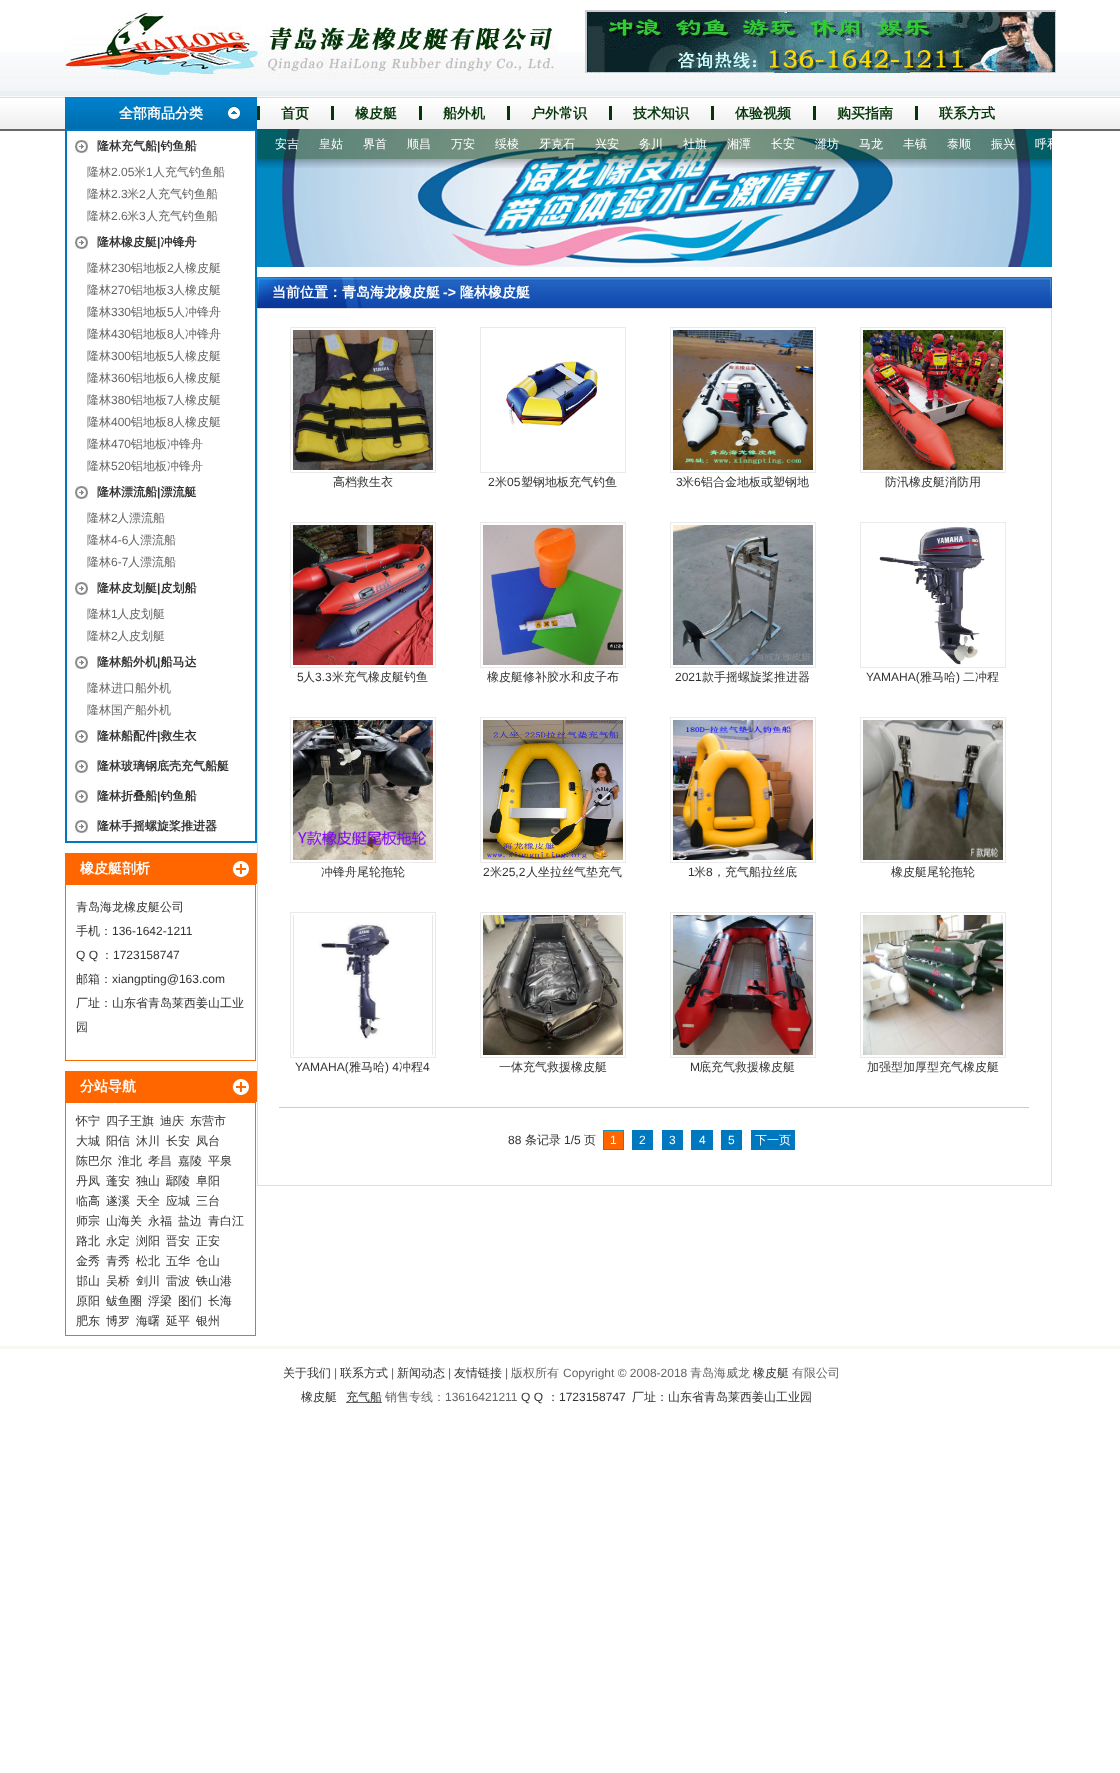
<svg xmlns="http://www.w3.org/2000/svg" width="1120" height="1773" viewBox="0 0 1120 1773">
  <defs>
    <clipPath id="clip1"><rect x="257" y="129" width="795" height="40"/></clipPath>
  </defs>
  <rect width="100%" height="100%" fill="rgb(255,255,255)"/>
  <image x="0" y="52" width="1120" height="79" href="pic1.png"/>
  <image x="65" y="10" width="493" height="65" href="pic2.png"/>
  <image x="585" y="10" width="471" height="63" href="pic3.png"/>
  <image x="65" y="97" width="192" height="32" href="pic4.png"/>
  <text x="119" y="118" font-family="WenQuanYi Zen Hei" font-size="14" font-weight="bold" fill="rgb(255,255,255)">全部商品分类</text>
  <rect x="257" y="106" width="3" height="14" fill="rgb(5,54,9)"/>
  <text x="281" y="118" font-family="WenQuanYi Zen Hei" font-size="14" font-weight="bold" fill="rgb(5,54,9)">首页</text>
  <rect x="331" y="106" width="3" height="14" fill="rgb(5,54,9)"/>
  <text x="355" y="118" font-family="WenQuanYi Zen Hei" font-size="14" font-weight="bold" fill="rgb(5,54,9)">橡皮艇</text>
  <rect x="419" y="106" width="3" height="14" fill="rgb(5,54,9)"/>
  <text x="443" y="118" font-family="WenQuanYi Zen Hei" font-size="14" font-weight="bold" fill="rgb(5,54,9)">船外机</text>
  <rect x="507" y="106" width="3" height="14" fill="rgb(5,54,9)"/>
  <text x="531" y="118" font-family="WenQuanYi Zen Hei" font-size="14" font-weight="bold" fill="rgb(5,54,9)">户外常识</text>
  <rect x="609" y="106" width="3" height="14" fill="rgb(5,54,9)"/>
  <text x="633" y="118" font-family="WenQuanYi Zen Hei" font-size="14" font-weight="bold" fill="rgb(5,54,9)">技术知识</text>
  <rect x="711" y="106" width="3" height="14" fill="rgb(5,54,9)"/>
  <text x="735" y="118" font-family="WenQuanYi Zen Hei" font-size="14" font-weight="bold" fill="rgb(5,54,9)">体验视频</text>
  <rect x="813" y="106" width="3" height="14" fill="rgb(5,54,9)"/>
  <text x="837" y="118" font-family="WenQuanYi Zen Hei" font-size="14" font-weight="bold" fill="rgb(5,54,9)">购买指南</text>
  <rect x="915" y="106" width="3" height="14" fill="rgb(5,54,9)"/>
  <text x="939" y="118" font-family="WenQuanYi Zen Hei" font-size="14" font-weight="bold" fill="rgb(5,54,9)">联系方式</text>
  <rect x="66" y="130" width="190" height="712" fill="none" stroke="rgb(0,120,192)" stroke-width="2"/>
  <image x="75" y="140" width="13" height="13" href="pic5.png"/>
  <text x="97" y="150" font-family="WenQuanYi Zen Hei" font-size="12" font-weight="bold" fill="rgb(51,51,51)">隆林充气船 钓鱼船</text>
  <text x="157" y="150" font-family="Liberation Sans" font-size="12" font-weight="bold" fill="rgb(51,51,51)">|</text>
  <text x="87" y="176" font-family="WenQuanYi Zen Hei" font-size="12" font-weight="500" fill="rgb(102,102,102)">隆林</text>
  <text x="111" y="176" font-family="Liberation Sans" font-size="12" fill="rgb(102,102,102)">2.05</text>
  <text x="134" y="176" font-family="WenQuanYi Zen Hei" font-size="12" font-weight="500" fill="rgb(102,102,102)">米</text>
  <text x="146" y="176" font-family="Liberation Sans" font-size="12" fill="rgb(102,102,102)">1</text>
  <g font-family="WenQuanYi Zen Hei" font-size="12" font-weight="500" fill="rgb(102,102,102)">
    <text x="153" y="176">人充气钓鱼船</text>
    <text x="87" y="198">隆林</text>
  </g>
  <text x="111" y="198" font-family="Liberation Sans" font-size="12" fill="rgb(102,102,102)">2.3</text>
  <text x="127" y="198" font-family="WenQuanYi Zen Hei" font-size="12" font-weight="500" fill="rgb(102,102,102)">米</text>
  <text x="139" y="198" font-family="Liberation Sans" font-size="12" fill="rgb(102,102,102)">2</text>
  <g font-family="WenQuanYi Zen Hei" font-size="12" font-weight="500" fill="rgb(102,102,102)">
    <text x="146" y="198">人充气钓鱼船</text>
    <text x="87" y="220">隆林</text>
  </g>
  <text x="111" y="220" font-family="Liberation Sans" font-size="12" fill="rgb(102,102,102)">2.6</text>
  <text x="127" y="220" font-family="WenQuanYi Zen Hei" font-size="12" font-weight="500" fill="rgb(102,102,102)">米</text>
  <text x="139" y="220" font-family="Liberation Sans" font-size="12" fill="rgb(102,102,102)">3</text>
  <text x="146" y="220" font-family="WenQuanYi Zen Hei" font-size="12" font-weight="500" fill="rgb(102,102,102)">人充气钓鱼船</text>
  <image x="75" y="236" width="13" height="13" href="pic5.png"/>
  <text x="97" y="246" font-family="WenQuanYi Zen Hei" font-size="12" font-weight="bold" fill="rgb(51,51,51)">隆林橡皮艇 冲锋舟</text>
  <text x="157" y="246" font-family="Liberation Sans" font-size="12" font-weight="bold" fill="rgb(51,51,51)">|</text>
  <text x="87" y="272" font-family="WenQuanYi Zen Hei" font-size="12" font-weight="500" fill="rgb(102,102,102)">隆林</text>
  <text x="111" y="272" font-family="Liberation Sans" font-size="12" fill="rgb(102,102,102)">230</text>
  <text x="131" y="272" font-family="WenQuanYi Zen Hei" font-size="12" font-weight="500" fill="rgb(102,102,102)">铝地板</text>
  <text x="167" y="272" font-family="Liberation Sans" font-size="12" fill="rgb(102,102,102)">2</text>
  <g font-family="WenQuanYi Zen Hei" font-size="12" font-weight="500" fill="rgb(102,102,102)">
    <text x="173" y="272">人橡皮艇</text>
    <text x="87" y="294">隆林</text>
  </g>
  <text x="111" y="294" font-family="Liberation Sans" font-size="12" fill="rgb(102,102,102)">270</text>
  <text x="131" y="294" font-family="WenQuanYi Zen Hei" font-size="12" font-weight="500" fill="rgb(102,102,102)">铝地板</text>
  <text x="167" y="294" font-family="Liberation Sans" font-size="12" fill="rgb(102,102,102)">3</text>
  <g font-family="WenQuanYi Zen Hei" font-size="12" font-weight="500" fill="rgb(102,102,102)">
    <text x="173" y="294">人橡皮艇</text>
    <text x="87" y="316">隆林</text>
  </g>
  <text x="111" y="316" font-family="Liberation Sans" font-size="12" fill="rgb(102,102,102)">330</text>
  <text x="131" y="316" font-family="WenQuanYi Zen Hei" font-size="12" font-weight="500" fill="rgb(102,102,102)">铝地板</text>
  <text x="167" y="316" font-family="Liberation Sans" font-size="12" fill="rgb(102,102,102)">5</text>
  <g font-family="WenQuanYi Zen Hei" font-size="12" font-weight="500" fill="rgb(102,102,102)">
    <text x="173" y="316">人冲锋舟</text>
    <text x="87" y="338">隆林</text>
  </g>
  <text x="111" y="338" font-family="Liberation Sans" font-size="12" fill="rgb(102,102,102)">430</text>
  <text x="131" y="338" font-family="WenQuanYi Zen Hei" font-size="12" font-weight="500" fill="rgb(102,102,102)">铝地板</text>
  <text x="167" y="338" font-family="Liberation Sans" font-size="12" fill="rgb(102,102,102)">8</text>
  <g font-family="WenQuanYi Zen Hei" font-size="12" font-weight="500" fill="rgb(102,102,102)">
    <text x="173" y="338">人冲锋舟</text>
    <text x="87" y="360">隆林</text>
  </g>
  <text x="111" y="360" font-family="Liberation Sans" font-size="12" fill="rgb(102,102,102)">300</text>
  <text x="131" y="360" font-family="WenQuanYi Zen Hei" font-size="12" font-weight="500" fill="rgb(102,102,102)">铝地板</text>
  <text x="167" y="360" font-family="Liberation Sans" font-size="12" fill="rgb(102,102,102)">5</text>
  <g font-family="WenQuanYi Zen Hei" font-size="12" font-weight="500" fill="rgb(102,102,102)">
    <text x="173" y="360">人橡皮艇</text>
    <text x="87" y="382">隆林</text>
  </g>
  <text x="111" y="382" font-family="Liberation Sans" font-size="12" fill="rgb(102,102,102)">360</text>
  <text x="131" y="382" font-family="WenQuanYi Zen Hei" font-size="12" font-weight="500" fill="rgb(102,102,102)">铝地板</text>
  <text x="167" y="382" font-family="Liberation Sans" font-size="12" fill="rgb(102,102,102)">6</text>
  <g font-family="WenQuanYi Zen Hei" font-size="12" font-weight="500" fill="rgb(102,102,102)">
    <text x="173" y="382">人橡皮艇</text>
    <text x="87" y="404">隆林</text>
  </g>
  <text x="111" y="404" font-family="Liberation Sans" font-size="12" fill="rgb(102,102,102)">380</text>
  <text x="131" y="404" font-family="WenQuanYi Zen Hei" font-size="12" font-weight="500" fill="rgb(102,102,102)">铝地板</text>
  <text x="167" y="404" font-family="Liberation Sans" font-size="12" fill="rgb(102,102,102)">7</text>
  <g font-family="WenQuanYi Zen Hei" font-size="12" font-weight="500" fill="rgb(102,102,102)">
    <text x="173" y="404">人橡皮艇</text>
    <text x="87" y="426">隆林</text>
  </g>
  <text x="111" y="426" font-family="Liberation Sans" font-size="12" fill="rgb(102,102,102)">400</text>
  <text x="131" y="426" font-family="WenQuanYi Zen Hei" font-size="12" font-weight="500" fill="rgb(102,102,102)">铝地板</text>
  <text x="167" y="426" font-family="Liberation Sans" font-size="12" fill="rgb(102,102,102)">8</text>
  <g font-family="WenQuanYi Zen Hei" font-size="12" font-weight="500" fill="rgb(102,102,102)">
    <text x="173" y="426">人橡皮艇</text>
    <text x="87" y="448">隆林</text>
  </g>
  <text x="111" y="448" font-family="Liberation Sans" font-size="12" fill="rgb(102,102,102)">470</text>
  <g font-family="WenQuanYi Zen Hei" font-size="12" font-weight="500" fill="rgb(102,102,102)">
    <text x="131" y="448">铝地板冲锋舟</text>
    <text x="87" y="470">隆林</text>
  </g>
  <text x="111" y="470" font-family="Liberation Sans" font-size="12" fill="rgb(102,102,102)">520</text>
  <text x="131" y="470" font-family="WenQuanYi Zen Hei" font-size="12" font-weight="500" fill="rgb(102,102,102)">铝地板冲锋舟</text>
  <image x="75" y="486" width="13" height="13" href="pic5.png"/>
  <text x="97" y="496" font-family="WenQuanYi Zen Hei" font-size="12" font-weight="bold" fill="rgb(51,51,51)">隆林漂流船 漂流艇</text>
  <text x="157" y="496" font-family="Liberation Sans" font-size="12" font-weight="bold" fill="rgb(51,51,51)">|</text>
  <text x="87" y="522" font-family="WenQuanYi Zen Hei" font-size="12" font-weight="500" fill="rgb(102,102,102)">隆林</text>
  <text x="111" y="522" font-family="Liberation Sans" font-size="12" fill="rgb(102,102,102)">2</text>
  <g font-family="WenQuanYi Zen Hei" font-size="12" font-weight="500" fill="rgb(102,102,102)">
    <text x="117" y="522">人漂流船</text>
    <text x="87" y="544">隆林</text>
  </g>
  <text x="111" y="544" font-family="Liberation Sans" font-size="12" fill="rgb(102,102,102)">4-6</text>
  <g font-family="WenQuanYi Zen Hei" font-size="12" font-weight="500" fill="rgb(102,102,102)">
    <text x="128" y="544">人漂流船</text>
    <text x="87" y="566">隆林</text>
  </g>
  <text x="111" y="566" font-family="Liberation Sans" font-size="12" fill="rgb(102,102,102)">6-7</text>
  <text x="128" y="566" font-family="WenQuanYi Zen Hei" font-size="12" font-weight="500" fill="rgb(102,102,102)">人漂流船</text>
  <image x="75" y="582" width="13" height="13" href="pic5.png"/>
  <text x="97" y="592" font-family="WenQuanYi Zen Hei" font-size="12" font-weight="bold" fill="rgb(51,51,51)">隆林皮划艇 皮划船</text>
  <text x="157" y="592" font-family="Liberation Sans" font-size="12" font-weight="bold" fill="rgb(51,51,51)">|</text>
  <text x="87" y="618" font-family="WenQuanYi Zen Hei" font-size="12" font-weight="500" fill="rgb(102,102,102)">隆林</text>
  <text x="111" y="618" font-family="Liberation Sans" font-size="12" fill="rgb(102,102,102)">1</text>
  <g font-family="WenQuanYi Zen Hei" font-size="12" font-weight="500" fill="rgb(102,102,102)">
    <text x="117" y="618">人皮划艇</text>
    <text x="87" y="640">隆林</text>
  </g>
  <text x="111" y="640" font-family="Liberation Sans" font-size="12" fill="rgb(102,102,102)">2</text>
  <text x="117" y="640" font-family="WenQuanYi Zen Hei" font-size="12" font-weight="500" fill="rgb(102,102,102)">人皮划艇</text>
  <image x="75" y="656" width="13" height="13" href="pic5.png"/>
  <text x="97" y="666" font-family="WenQuanYi Zen Hei" font-size="12" font-weight="bold" fill="rgb(51,51,51)">隆林船外机 船马达</text>
  <text x="157" y="666" font-family="Liberation Sans" font-size="12" font-weight="bold" fill="rgb(51,51,51)">|</text>
  <g font-family="WenQuanYi Zen Hei" font-size="12" font-weight="500" fill="rgb(102,102,102)">
    <text>
      <tspan x="87" y="692">隆林进口船外机</tspan>
      <tspan x="87" y="714">隆林国产船外机</tspan>
    </text>
  </g>
  <image x="75" y="730" width="13" height="13" href="pic5.png"/>
  <text x="97" y="740" font-family="WenQuanYi Zen Hei" font-size="12" font-weight="bold" fill="rgb(51,51,51)">隆林船配件 救生衣</text>
  <text x="157" y="740" font-family="Liberation Sans" font-size="12" font-weight="bold" fill="rgb(51,51,51)">|</text>
  <image x="75" y="760" width="13" height="13" href="pic5.png"/>
  <text x="97" y="770" font-family="WenQuanYi Zen Hei" font-size="12" font-weight="bold" fill="rgb(51,51,51)">隆林玻璃钢底壳充气船艇</text>
  <image x="75" y="790" width="13" height="13" href="pic5.png"/>
  <text x="97" y="800" font-family="WenQuanYi Zen Hei" font-size="12" font-weight="bold" fill="rgb(51,51,51)">隆林折叠船 钓鱼船</text>
  <text x="157" y="800" font-family="Liberation Sans" font-size="12" font-weight="bold" fill="rgb(51,51,51)">|</text>
  <image x="75" y="820" width="13" height="13" href="pic5.png"/>
  <text x="97" y="830" font-family="WenQuanYi Zen Hei" font-size="12" font-weight="bold" fill="rgb(51,51,51)">隆林手摇螺旋桨推进器</text>
  <image x="65" y="853" width="192" height="31" href="pic6.png"/>
  <text x="80" y="873" font-family="WenQuanYi Zen Hei" font-size="14" font-weight="bold" fill="rgb(255,255,255)">橡皮艇剖析</text>
  <rect x="65.5" y="884.5" width="190" height="176" fill="none" stroke="rgb(255,102,0)"/>
  <g font-family="WenQuanYi Zen Hei" font-size="12" font-weight="500" fill="rgb(51,51,51)">
    <text x="76" y="911">青岛海龙橡皮艇公司</text>
    <text x="76" y="935">手机：</text>
  </g>
  <g font-family="Liberation Sans" font-size="12" fill="rgb(51,51,51)">
    <text x="112" y="935">136-1642-1211</text>
    <text x="76" y="959">Q Q</text>
  </g>
  <text x="101" y="959" font-family="WenQuanYi Zen Hei" font-size="12" font-weight="500" fill="rgb(51,51,51)">：</text>
  <text x="113" y="959" font-family="Liberation Sans" font-size="12" fill="rgb(51,51,51)">1723158747</text>
  <text x="76" y="983" font-family="WenQuanYi Zen Hei" font-size="12" font-weight="500" fill="rgb(51,51,51)">邮箱：</text>
  <text x="112" y="983" font-family="Liberation Sans" font-size="12" fill="rgb(51,51,51)">xiangpting@163.com</text>
  <g font-family="WenQuanYi Zen Hei" font-size="12" font-weight="500" fill="rgb(51,51,51)">
    <text x="76" y="1007">厂址：山东省青岛莱西姜山工业</text>
    <text x="76" y="1031">园</text>
  </g>
  <image x="65" y="1071" width="192" height="31" href="pic6.png"/>
  <text x="80" y="1091" font-family="WenQuanYi Zen Hei" font-size="14" font-weight="bold" fill="rgb(255,255,255)">分站导航</text>
  <rect x="65.5" y="1102.5" width="190" height="233" fill="none" stroke="rgb(255,102,0)"/>
  <g font-family="WenQuanYi Zen Hei" font-size="12" font-weight="500" fill="rgb(51,51,51)">
    <text x="76" y="1125">怀宁</text>
    <text x="106" y="1125">四子王旗</text>
    <text x="160" y="1125">迪庆</text>
    <text x="190" y="1125">东营市</text>
    <text x="76" y="1145">大城</text>
    <text x="106" y="1145">阳信</text>
    <text x="136" y="1145">沐川</text>
    <text x="166" y="1145">长安</text>
    <text x="196" y="1145">凤台</text>
    <text x="76" y="1165">陈巴尔</text>
    <text x="118" y="1165">淮北</text>
    <text x="148" y="1165">孝昌</text>
    <text x="178" y="1165">嘉陵</text>
    <text x="208" y="1165">平泉</text>
    <text x="76" y="1185">丹凤</text>
    <text x="106" y="1185">蓬安</text>
    <text x="136" y="1185">独山</text>
    <text x="166" y="1185">鄢陵</text>
    <text x="196" y="1185">阜阳</text>
    <text x="76" y="1205">临高</text>
    <text x="106" y="1205">遂溪</text>
    <text x="136" y="1205">天全</text>
    <text x="166" y="1205">应城</text>
    <text x="196" y="1205">三台</text>
    <text x="76" y="1225">师宗</text>
    <text x="106" y="1225">山海关</text>
    <text x="148" y="1225">永福</text>
    <text x="178" y="1225">盐边</text>
    <text x="208" y="1225">青白江</text>
    <text x="76" y="1245">路北</text>
    <text x="106" y="1245">永定</text>
    <text x="136" y="1245">浏阳</text>
    <text x="166" y="1245">晋安</text>
    <text x="196" y="1245">正安</text>
    <text x="76" y="1265">金秀</text>
    <text x="106" y="1265">青秀</text>
    <text x="136" y="1265">松北</text>
    <text x="166" y="1265">五华</text>
    <text x="196" y="1265">仓山</text>
    <text x="76" y="1285">邯山</text>
    <text x="106" y="1285">吴桥</text>
    <text x="136" y="1285">剑川</text>
    <text x="166" y="1285">雷波</text>
    <text x="196" y="1285">铁山港</text>
    <text x="76" y="1305">原阳</text>
    <text x="106" y="1305">鲅鱼圈</text>
    <text x="148" y="1305">浮梁</text>
    <text x="178" y="1305">图们</text>
    <text x="208" y="1305">长海</text>
    <text x="76" y="1325">肥东</text>
    <text x="106" y="1325">博罗</text>
    <text x="136" y="1325">海曙</text>
    <text x="166" y="1325">延平</text>
    <text x="196" y="1325">银州</text>
  </g>
  <image x="257" y="129" width="795" height="138" href="pic7.png"/>
  <image x="257" y="129" width="795" height="39" href="pic8.png"/>
  <g font-family="WenQuanYi Zen Hei" font-size="12" font-weight="500" fill="rgb(255,255,255)">
    <text x="275" y="148">安吉</text>
    <text x="319" y="148">皇姑</text>
    <text x="363" y="148">界首</text>
    <text x="407" y="148">顺昌</text>
    <text x="451" y="148">万安</text>
    <text x="495" y="148">绥棱</text>
    <text x="539" y="148">牙克石</text>
    <text x="595" y="148">兴安</text>
    <text x="639" y="148">务川</text>
    <text x="683" y="148">社旗</text>
    <text x="727" y="148">湘潭</text>
    <text x="771" y="148">长安</text>
    <text x="815" y="148">潍坊</text>
    <text x="859" y="148">马龙</text>
    <text x="903" y="148">丰镇</text>
    <text x="947" y="148">泰顺</text>
    <text x="991" y="148">振兴</text>
  </g>
  <g clip-path="url(#clip1)">
    <text x="1035" y="148" font-family="WenQuanYi Zen Hei" font-size="12" font-weight="500" fill="rgb(255,255,255)">呼和</text>
  </g>
  <image x="257" y="277" width="795" height="31" href="pic9.png"/>
  <text x="272" y="297" font-family="WenQuanYi Zen Hei" font-size="14" font-weight="bold" fill="rgb(255,255,255)">当前位置：青岛海龙橡皮艇</text>
  <text x="443" y="297" font-family="Liberation Sans" font-size="14" font-weight="bold" fill="rgb(255,255,255)">-&gt;</text>
  <text x="460" y="297" font-family="WenQuanYi Zen Hei" font-size="14" font-weight="bold" fill="rgb(255,255,255)">隆林橡皮艇</text>
  <rect x="257.5" y="308.5" width="794" height="877" fill="none" stroke="rgb(223,223,223)"/>
  <rect x="290.5" y="327.5" width="145" height="145" fill="none" stroke="rgb(234,234,234)"/>
  <image x="293" y="330" width="140" height="140" href="pic10.png"/>
  <text x="333" y="486" font-family="WenQuanYi Zen Hei" font-size="12" font-weight="500" fill="rgb(51,51,51)">高档救生衣</text>
  <rect x="480.5" y="327.5" width="145" height="145" fill="none" stroke="rgb(234,234,234)"/>
  <image x="505" y="361" width="93" height="66" href="pic11.png"/>
  <text x="488" y="486" font-family="Liberation Sans" font-size="12" fill="rgb(51,51,51)">2</text>
  <text x="495" y="486" font-family="WenQuanYi Zen Hei" font-size="12" font-weight="500" fill="rgb(51,51,51)">米</text>
  <text x="507" y="486" font-family="Liberation Sans" font-size="12" fill="rgb(51,51,51)">05</text>
  <text x="521" y="486" font-family="WenQuanYi Zen Hei" font-size="12" font-weight="500" fill="rgb(51,51,51)">塑钢地板充气钓鱼</text>
  <rect x="670.5" y="327.5" width="145" height="145" fill="none" stroke="rgb(234,234,234)"/>
  <image x="673" y="330" width="140" height="140" href="pic12.png"/>
  <text x="676" y="486" font-family="Liberation Sans" font-size="12" fill="rgb(51,51,51)">3</text>
  <text x="682" y="486" font-family="WenQuanYi Zen Hei" font-size="12" font-weight="500" fill="rgb(51,51,51)">米</text>
  <text x="694" y="486" font-family="Liberation Sans" font-size="12" fill="rgb(51,51,51)">6</text>
  <text x="701" y="486" font-family="WenQuanYi Zen Hei" font-size="12" font-weight="500" fill="rgb(51,51,51)">铝合金地板或塑钢地</text>
  <rect x="860.5" y="327.5" width="145" height="145" fill="none" stroke="rgb(234,234,234)"/>
  <image x="863" y="330" width="140" height="140" href="pic13.png"/>
  <text x="885" y="486" font-family="WenQuanYi Zen Hei" font-size="12" font-weight="500" fill="rgb(51,51,51)">防汛橡皮艇消防用</text>
  <rect x="290.5" y="522.5" width="145" height="145" fill="none" stroke="rgb(234,234,234)"/>
  <image x="293" y="525" width="140" height="140" href="pic14.png"/>
  <text x="297" y="681" font-family="Liberation Sans" font-size="12" fill="rgb(51,51,51)">5</text>
  <text x="303" y="681" font-family="WenQuanYi Zen Hei" font-size="12" font-weight="500" fill="rgb(51,51,51)">人</text>
  <text x="315" y="681" font-family="Liberation Sans" font-size="12" fill="rgb(51,51,51)">3.3</text>
  <text x="332" y="681" font-family="WenQuanYi Zen Hei" font-size="12" font-weight="500" fill="rgb(51,51,51)">米充气橡皮艇钓鱼</text>
  <rect x="480.5" y="522.5" width="145" height="145" fill="none" stroke="rgb(234,234,234)"/>
  <image x="483" y="525" width="140" height="140" href="pic15.png"/>
  <text x="487" y="681" font-family="WenQuanYi Zen Hei" font-size="12" font-weight="500" fill="rgb(51,51,51)">橡皮艇修补胶水和皮子布</text>
  <rect x="670.5" y="522.5" width="145" height="145" fill="none" stroke="rgb(234,234,234)"/>
  <image x="673" y="525" width="140" height="140" href="pic16.png"/>
  <text x="675" y="681" font-family="Liberation Sans" font-size="12" fill="rgb(51,51,51)">2021</text>
  <text x="702" y="681" font-family="WenQuanYi Zen Hei" font-size="12" font-weight="500" fill="rgb(51,51,51)">款手摇螺旋桨推进器</text>
  <rect x="860.5" y="522.5" width="145" height="145" fill="none" stroke="rgb(234,234,234)"/>
  <image x="879" y="527" width="106" height="138" href="pic17.png"/>
  <text x="866" y="681" font-family="Liberation Sans" font-size="12" fill="rgb(51,51,51)">YAMAHA(</text>
  <text x="920" y="681" font-family="WenQuanYi Zen Hei" font-size="12" font-weight="500" fill="rgb(51,51,51)">雅马哈</text>
  <text x="956" y="681" font-family="Liberation Sans" font-size="12" fill="rgb(51,51,51)">)</text>
  <text x="963" y="681" font-family="WenQuanYi Zen Hei" font-size="12" font-weight="500" fill="rgb(51,51,51)">二冲程</text>
  <rect x="290.5" y="717.5" width="145" height="145" fill="none" stroke="rgb(234,234,234)"/>
  <image x="293" y="720" width="140" height="140" href="pic18.png"/>
  <text x="321" y="876" font-family="WenQuanYi Zen Hei" font-size="12" font-weight="500" fill="rgb(51,51,51)">冲锋舟尾轮拖轮</text>
  <rect x="480.5" y="717.5" width="145" height="145" fill="none" stroke="rgb(234,234,234)"/>
  <image x="483" y="720" width="140" height="140" href="pic19.png"/>
  <text x="483" y="876" font-family="Liberation Sans" font-size="12" fill="rgb(51,51,51)">2</text>
  <text x="490" y="876" font-family="WenQuanYi Zen Hei" font-size="12" font-weight="500" fill="rgb(51,51,51)">米</text>
  <text x="502" y="876" font-family="Liberation Sans" font-size="12" fill="rgb(51,51,51)">25,2</text>
  <text x="526" y="876" font-family="WenQuanYi Zen Hei" font-size="12" font-weight="500" fill="rgb(51,51,51)">人坐拉丝气垫充气</text>
  <rect x="670.5" y="717.5" width="145" height="145" fill="none" stroke="rgb(234,234,234)"/>
  <image x="673" y="720" width="140" height="140" href="pic20.png"/>
  <text x="688" y="876" font-family="Liberation Sans" font-size="12" fill="rgb(51,51,51)">1</text>
  <text x="694" y="876" font-family="WenQuanYi Zen Hei" font-size="12" font-weight="500" fill="rgb(51,51,51)">米</text>
  <text x="706" y="876" font-family="Liberation Sans" font-size="12" fill="rgb(51,51,51)">8</text>
  <text x="713" y="876" font-family="WenQuanYi Zen Hei" font-size="12" font-weight="500" fill="rgb(51,51,51)">，充气船拉丝底</text>
  <rect x="860.5" y="717.5" width="145" height="145" fill="none" stroke="rgb(234,234,234)"/>
  <image x="863" y="720" width="140" height="140" href="pic21.png"/>
  <text x="891" y="876" font-family="WenQuanYi Zen Hei" font-size="12" font-weight="500" fill="rgb(51,51,51)">橡皮艇尾轮拖轮</text>
  <rect x="290.5" y="912.5" width="145" height="145" fill="none" stroke="rgb(234,234,234)"/>
  <image x="293" y="915" width="140" height="140" href="pic22.png"/>
  <text x="295" y="1071" font-family="Liberation Sans" font-size="12" fill="rgb(51,51,51)">YAMAHA(</text>
  <text x="349" y="1071" font-family="WenQuanYi Zen Hei" font-size="12" font-weight="500" fill="rgb(51,51,51)">雅马哈</text>
  <text x="385" y="1071" font-family="Liberation Sans" font-size="12" fill="rgb(51,51,51)">) 4</text>
  <text x="399" y="1071" font-family="WenQuanYi Zen Hei" font-size="12" font-weight="500" fill="rgb(51,51,51)">冲程</text>
  <text x="423" y="1071" font-family="Liberation Sans" font-size="12" fill="rgb(51,51,51)">4</text>
  <rect x="480.5" y="912.5" width="145" height="145" fill="none" stroke="rgb(234,234,234)"/>
  <image x="483" y="915" width="140" height="140" href="pic23.png"/>
  <text x="499" y="1071" font-family="WenQuanYi Zen Hei" font-size="12" font-weight="500" fill="rgb(51,51,51)">一体充气救援橡皮艇</text>
  <rect x="670.5" y="912.5" width="145" height="145" fill="none" stroke="rgb(234,234,234)"/>
  <image x="673" y="915" width="140" height="140" href="pic24.png"/>
  <text x="690" y="1071" font-family="Liberation Sans" font-size="12" fill="rgb(51,51,51)">M</text>
  <text x="699" y="1071" font-family="WenQuanYi Zen Hei" font-size="12" font-weight="500" fill="rgb(51,51,51)">底充气救援橡皮艇</text>
  <rect x="860.5" y="912.5" width="145" height="145" fill="none" stroke="rgb(234,234,234)"/>
  <image x="863" y="915" width="140" height="140" href="pic25.png"/>
  <text x="867" y="1071" font-family="WenQuanYi Zen Hei" font-size="12" font-weight="500" fill="rgb(51,51,51)">加强型加厚型充气橡皮艇</text>
  <rect x="279" y="1107" width="750" height="1" fill="rgb(204,204,204)"/>
  <text x="508" y="1144" font-family="Liberation Sans" font-size="12" fill="rgb(51,51,51)">88</text>
  <text x="525" y="1144" font-family="WenQuanYi Zen Hei" font-size="12" font-weight="500" fill="rgb(51,51,51)">条记录</text>
  <text x="564" y="1144" font-family="Liberation Sans" font-size="12" fill="rgb(51,51,51)">1/5</text>
  <text x="584" y="1144" font-family="WenQuanYi Zen Hei" font-size="12" font-weight="500" fill="rgb(51,51,51)">页</text>
  <rect x="603.5" y="1130.5" width="20" height="19" fill="rgb(255,102,0)" stroke="rgb(0,153,204)"/>
  <text x="610" y="1144" font-family="Liberation Sans" font-size="12" fill="rgb(255,255,255)">1</text>
  <rect x="632" y="1130" width="21" height="20" fill="rgb(0,120,192)"/>
  <text x="639" y="1144" font-family="Liberation Sans" font-size="12" fill="rgb(255,255,255)">2</text>
  <rect x="662" y="1130" width="21" height="20" fill="rgb(0,120,192)"/>
  <text x="669" y="1144" font-family="Liberation Sans" font-size="12" fill="rgb(255,255,255)">3</text>
  <rect x="691" y="1130" width="22" height="20" fill="rgb(0,120,192)"/>
  <text x="699" y="1144" font-family="Liberation Sans" font-size="12" fill="rgb(255,255,255)">4</text>
  <rect x="721" y="1130" width="21" height="20" fill="rgb(0,120,192)"/>
  <text x="728" y="1144" font-family="Liberation Sans" font-size="12" fill="rgb(255,255,255)">5</text>
  <rect x="751" y="1130" width="44" height="20" fill="rgb(0,120,192)"/>
  <text x="755" y="1144" font-family="WenQuanYi Zen Hei" font-size="12" font-weight="500" fill="rgb(255,255,255)">下一页</text>
  <rect x="0" y="1346" width="1120" height="3" fill="rgb(247,248,242)"/>
  <text x="283" y="1377" font-family="WenQuanYi Zen Hei" font-size="12" font-weight="500" fill="rgb(51,51,51)">关于我们</text>
  <text x="334" y="1377" font-family="Liberation Sans" font-size="12" fill="rgb(102,102,102)">|</text>
  <text x="340" y="1377" font-family="WenQuanYi Zen Hei" font-size="12" font-weight="500" fill="rgb(51,51,51)">联系方式</text>
  <text x="391" y="1377" font-family="Liberation Sans" font-size="12" fill="rgb(102,102,102)">|</text>
  <text x="397" y="1377" font-family="WenQuanYi Zen Hei" font-size="12" font-weight="500" fill="rgb(51,51,51)">新闻动态</text>
  <text x="448" y="1377" font-family="Liberation Sans" font-size="12" fill="rgb(102,102,102)">|</text>
  <text x="454" y="1377" font-family="WenQuanYi Zen Hei" font-size="12" font-weight="500" fill="rgb(51,51,51)">友情链接</text>
  <text x="505" y="1377" font-family="Liberation Sans" font-size="12" fill="rgb(102,102,102)">|</text>
  <text x="511" y="1377" font-family="WenQuanYi Zen Hei" font-size="12" font-weight="500" fill="rgb(102,102,102)">版权所有</text>
  <text x="563" y="1377" font-family="Liberation Sans" font-size="12" fill="rgb(102,102,102)">Copyright © 2008-2018</text>
  <text x="690" y="1377" font-family="WenQuanYi Zen Hei" font-size="12" font-weight="500" fill="rgb(102,102,102)">青岛海威龙</text>
  <text x="753" y="1377" font-family="WenQuanYi Zen Hei" font-size="12" font-weight="500" fill="rgb(51,51,51)">橡皮艇</text>
  <text x="792" y="1377" font-family="WenQuanYi Zen Hei" font-size="12" font-weight="500" fill="rgb(102,102,102)">有限公司</text>
  <text x="301" y="1401" font-family="WenQuanYi Zen Hei" font-size="12" font-weight="500" fill="rgb(51,51,51)">橡皮艇</text>
  <rect x="346" y="1402" width="36" height="1" fill="rgb(102,102,102)"/>
  <text x="346" y="1401" font-family="WenQuanYi Zen Hei" font-size="12" font-weight="500" fill="rgb(51,51,51)">充气船</text>
  <text x="385" y="1401" font-family="WenQuanYi Zen Hei" font-size="12" font-weight="500" fill="rgb(102,102,102)">销售专线：</text>
  <text x="445" y="1401" font-family="Liberation Sans" font-size="12" fill="rgb(102,102,102)">13616421211</text>
  <text x="521" y="1401" font-family="Liberation Sans" font-size="12" fill="rgb(51,51,51)">Q Q</text>
  <text x="547" y="1401" font-family="WenQuanYi Zen Hei" font-size="12" font-weight="500" fill="rgb(51,51,51)">：</text>
  <text x="559" y="1401" font-family="Liberation Sans" font-size="12" fill="rgb(51,51,51)">1723158747</text>
  <text x="632" y="1401" font-family="WenQuanYi Zen Hei" font-size="12" font-weight="500" fill="rgb(51,51,51)">厂址：山东省青岛莱西姜山工业园</text>
</svg>
